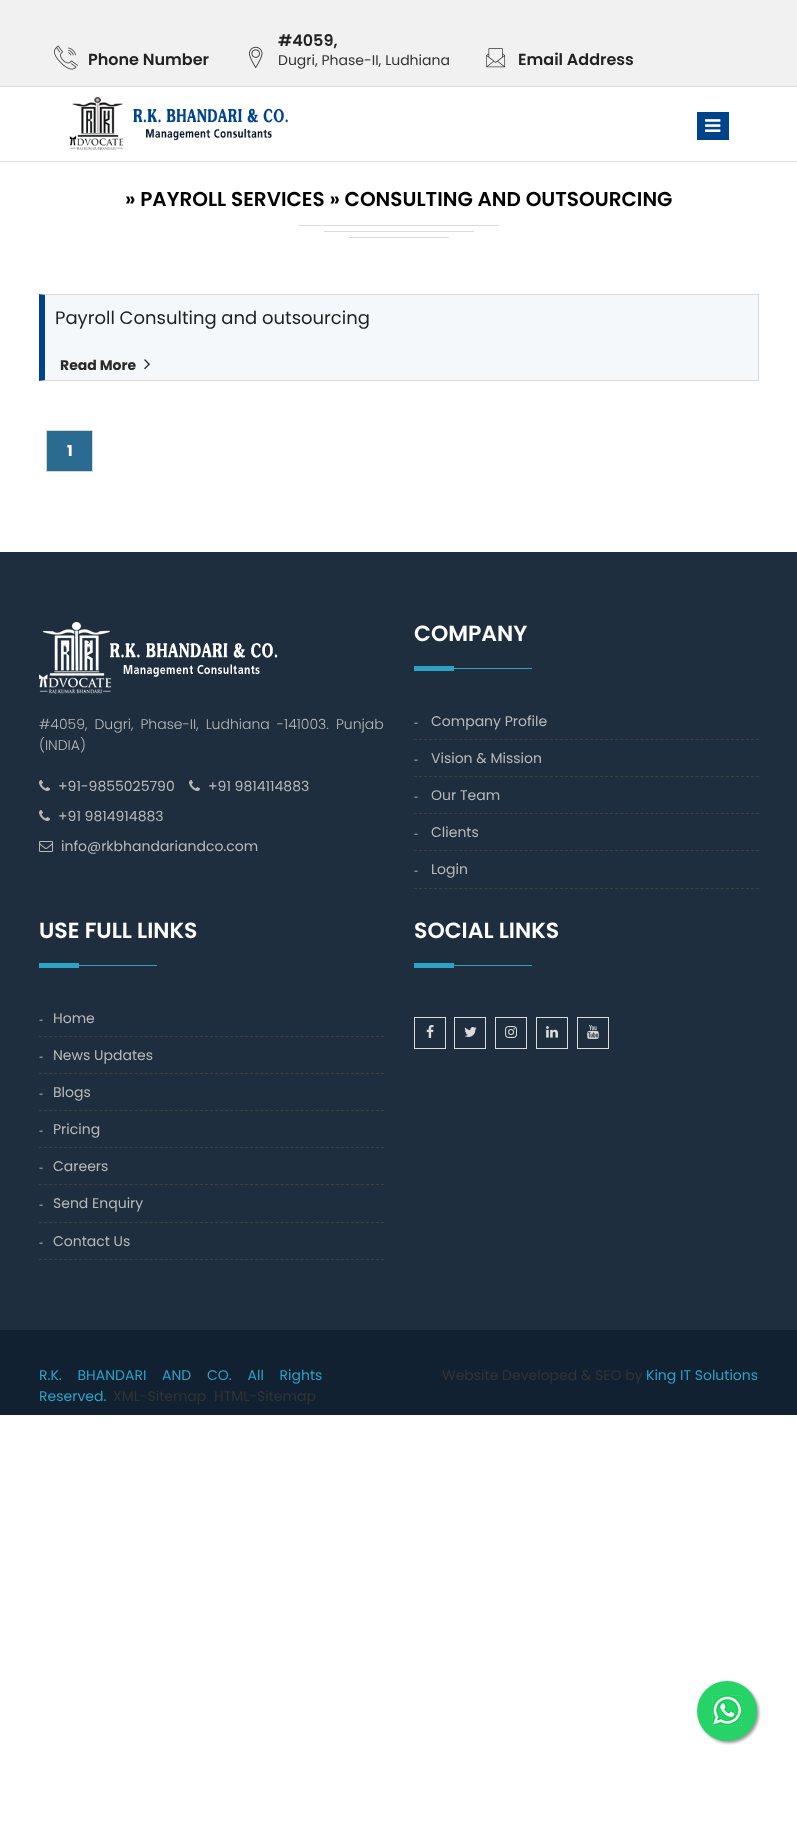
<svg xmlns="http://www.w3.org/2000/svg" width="797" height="1841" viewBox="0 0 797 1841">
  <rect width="100%" height="100%" fill="rgb(255,255,255)"/>
  <rect x="0" y="0" width="797" height="86" fill="rgb(241,241,241)"/>
  <rect x="0" y="86" width="797" height="1" fill="rgb(219,219,219)"/>
  <image x="54" y="45" width="24" height="25" href="pic1.png"/>
  <text x="88" y="65" font-family="Poppins" font-size="16" font-weight="600" fill="rgb(34,34,34)">Phone Number</text>
  <image x="248" y="46" width="15" height="23" href="pic2.png"/>
  <text x="278" y="46" font-family="Poppins" font-size="16" font-weight="600" fill="rgb(34,34,34)">#4059,</text>
  <text x="278" y="65" font-family="Poppins" font-size="14" fill="rgb(51,51,51)">Dugri, Phase-II, Ludhiana</text>
  <image x="486" y="48" width="20" height="20" href="pic3.png"/>
  <text x="518" y="65" font-family="Poppins" font-size="16" font-weight="600" fill="rgb(34,34,34)">Email Address</text>
  <rect x="0" y="161" width="797" height="1" fill="rgb(224,224,224)"/>
  <image x="69" y="97" width="219" height="54" href="pic4.png"/>
  <rect x="697" y="112" width="32" height="28" fill="rgb(0,67,139)"/>
  <image x="705" y="119" width="16" height="13" href="pic5.png"/>
  <text x="125" y="206" font-family="Poppins" font-size="20" font-weight="600" fill="rgb(0,0,0)">» PAYROLL SERVICES » CONSULTING AND OUTSOURCING</text>
  <rect x="299" y="225" width="200" height="1" fill="rgb(219,219,219)"/>
  <rect x="324" y="231" width="150" height="1" fill="rgb(219,219,219)"/>
  <rect x="349" y="237" width="100" height="1" fill="rgb(219,219,219)"/>
  <rect x="45" y="295" width="713" height="85" fill="rgb(245,248,250)"/>
  <path d="M39 294H759L758 295H45Z" fill="rgb(218,218,218)"/>
  <rect x="758" y="294" width="1" height="87" fill="rgb(218,218,218)"/>
  <path d="M759 381H39L45 380H758Z" fill="rgb(218,218,218)"/>
  <path d="M39 381V294L45 295V380Z" fill="rgb(0,67,139)"/>
  <text x="55" y="324" font-family="Poppins" font-size="18" fill="rgb(34,34,34)">Payroll Consulting and outsourcing</text>
  <text x="60" y="370" font-family="Poppins" font-size="14" font-weight="bold" fill="rgb(42,42,42)">Read More</text>
  <image x="144" y="359" width="6" height="11" href="pic6.png"/>
  <rect x="46.5" y="430.5" width="46" height="41" fill="rgb(43,106,145)" stroke="rgb(213,213,213)"/>
  <text x="67" y="456" font-family="Poppins" font-size="15" font-weight="bold" fill="rgb(255,255,255)">1</text>
  <rect x="0" y="552" width="797" height="778" fill="rgb(30,46,62)"/>
  <image x="39" y="622" width="239" height="72" href="pic7.png"/>
  <g font-family="Poppins" font-size="14" font-weight="300" fill="rgb(185,185,185)">
    <text>
      <tspan x="39" y="729" word-spacing="3.25">#4059, Dugri, Phase-II, Ludhiana -141003. Punjab</tspan>
      <tspan x="39" y="750">(INDIA)</tspan>
    </text>
  </g>
  <image x="39" y="780" width="11" height="11" href="pic8.png"/>
  <text x="58" y="791" font-family="Poppins" font-size="14" fill="rgb(185,185,185)">+91-9855025790</text>
  <image x="189" y="780" width="11" height="11" href="pic8.png"/>
  <text x="208" y="791" font-family="Poppins" font-size="14" fill="rgb(185,185,185)">+91 9814114883</text>
  <image x="39" y="810" width="11" height="11" href="pic8.png"/>
  <text x="58" y="821" font-family="Poppins" font-size="14" fill="rgb(185,185,185)">+91 9814914883</text>
  <image x="39" y="841" width="14" height="11" href="pic9.png"/>
  <text x="61" y="851" font-family="Poppins" font-size="14" fill="rgb(185,185,185)">info@rkbhandariandco.com</text>
  <text x="414" y="641" font-family="Poppins" font-size="22" font-weight="600" fill="rgb(255,255,255)">COMPANY</text>
  <rect x="414" y="666" width="40" height="5" fill="rgb(44,162,198)"/>
  <rect x="454" y="668" width="78" height="1" fill="rgb(44,162,198)"/>
  <path d="M414 739.5H759" fill="none" stroke="rgb(64,64,64)" stroke-dasharray="3 2.03"/>
  <text x="414" y="726" font-family="Liberation Serif" font-size="12" fill="rgb(185,185,185)">-</text>
  <text x="431" y="726" font-family="Poppins" font-size="14" fill="rgb(185,185,185)">Company Profile</text>
  <path d="M414 776.5H759" fill="none" stroke="rgb(64,64,64)" stroke-dasharray="3 2.03"/>
  <text x="414" y="763" font-family="Liberation Serif" font-size="12" fill="rgb(185,185,185)">-</text>
  <text x="431" y="763" font-family="Poppins" font-size="14" fill="rgb(185,185,185)">Vision &amp; Mission</text>
  <path d="M414 813.5H759" fill="none" stroke="rgb(64,64,64)" stroke-dasharray="3 2.03"/>
  <text x="414" y="800" font-family="Liberation Serif" font-size="12" fill="rgb(185,185,185)">-</text>
  <text x="431" y="800" font-family="Poppins" font-size="14" fill="rgb(185,185,185)">Our Team</text>
  <path d="M414 850.5H759" fill="none" stroke="rgb(64,64,64)" stroke-dasharray="3 2.03"/>
  <text x="414" y="837" font-family="Liberation Serif" font-size="12" fill="rgb(185,185,185)">-</text>
  <text x="431" y="837" font-family="Poppins" font-size="14" fill="rgb(185,185,185)">Clients</text>
  <path d="M414 888.5H759" fill="none" stroke="rgb(64,64,64)" stroke-dasharray="3 2.03"/>
  <text x="414" y="874" font-family="Liberation Serif" font-size="12" fill="rgb(185,185,185)">-</text>
  <text x="431" y="874" font-family="Poppins" font-size="14" fill="rgb(185,185,185)">Login</text>
  <text x="39" y="938" font-family="Poppins" font-size="22" font-weight="600" fill="rgb(255,255,255)">USE FULL LINKS</text>
  <rect x="39" y="963" width="40" height="5" fill="rgb(44,162,198)"/>
  <rect x="79" y="965" width="78" height="1" fill="rgb(44,162,198)"/>
  <path d="M39 1036.5H384" fill="none" stroke="rgb(64,64,64)" stroke-dasharray="3 2.03"/>
  <text x="39" y="1023" font-family="Liberation Serif" font-size="12" fill="rgb(185,185,185)">-</text>
  <text x="53" y="1023" font-family="Poppins" font-size="14" fill="rgb(185,185,185)">Home</text>
  <path d="M39 1073.5H384" fill="none" stroke="rgb(64,64,64)" stroke-dasharray="3 2.03"/>
  <text x="39" y="1060" font-family="Liberation Serif" font-size="12" fill="rgb(185,185,185)">-</text>
  <text x="53" y="1060" font-family="Poppins" font-size="14" fill="rgb(185,185,185)">News Updates</text>
  <path d="M39 1110.5H384" fill="none" stroke="rgb(64,64,64)" stroke-dasharray="3 2.03"/>
  <text x="39" y="1097" font-family="Liberation Serif" font-size="12" fill="rgb(185,185,185)">-</text>
  <text x="53" y="1097" font-family="Poppins" font-size="14" fill="rgb(185,185,185)">Blogs</text>
  <path d="M39 1147.5H384" fill="none" stroke="rgb(64,64,64)" stroke-dasharray="3 2.03"/>
  <text x="39" y="1134" font-family="Liberation Serif" font-size="12" fill="rgb(185,185,185)">-</text>
  <text x="53" y="1134" font-family="Poppins" font-size="14" fill="rgb(185,185,185)">Pricing</text>
  <path d="M39 1184.5H384" fill="none" stroke="rgb(64,64,64)" stroke-dasharray="3 2.03"/>
  <text x="39" y="1171" font-family="Liberation Serif" font-size="12" fill="rgb(185,185,185)">-</text>
  <text x="53" y="1171" font-family="Poppins" font-size="14" fill="rgb(185,185,185)">Careers</text>
  <path d="M39 1222.5H384" fill="none" stroke="rgb(64,64,64)" stroke-dasharray="3 2.03"/>
  <text x="39" y="1208" font-family="Liberation Serif" font-size="12" fill="rgb(185,185,185)">-</text>
  <text x="53" y="1208" font-family="Poppins" font-size="14" fill="rgb(185,185,185)">Send Enquiry</text>
  <path d="M39 1259.5H384" fill="none" stroke="rgb(64,64,64)" stroke-dasharray="3 2.03"/>
  <text x="39" y="1246" font-family="Liberation Serif" font-size="12" fill="rgb(185,185,185)">-</text>
  <text x="53" y="1246" font-family="Poppins" font-size="14" fill="rgb(185,185,185)">Contact Us</text>
  <text x="414" y="938" font-family="Poppins" font-size="22" font-weight="600" fill="rgb(255,255,255)">SOCIAL LINKS</text>
  <rect x="414" y="963" width="40" height="5" fill="rgb(44,162,198)"/>
  <rect x="454" y="965" width="78" height="1" fill="rgb(44,162,198)"/>
  <rect x="414.5" y="1017.5" width="31" height="31" fill="none" stroke="rgb(219,219,219)"/>
  <image x="426" y="1025" width="8" height="13" href="pic10.png"/>
  <rect x="454.5" y="1017.5" width="31" height="31" fill="none" stroke="rgb(219,219,219)"/>
  <image x="464" y="1027" width="13" height="10" href="pic11.png"/>
  <rect x="495.5" y="1017.5" width="31" height="31" fill="none" stroke="rgb(219,219,219)"/>
  <image x="505" y="1026" width="12" height="12" href="pic12.png"/>
  <rect x="536.5" y="1017.5" width="31" height="31" fill="none" stroke="rgb(219,219,219)"/>
  <image x="546" y="1026" width="12" height="12" href="pic13.png"/>
  <rect x="577.5" y="1017.5" width="31" height="31" fill="none" stroke="rgb(219,219,219)"/>
  <image x="587" y="1025" width="12" height="14" href="pic14.png"/>
  <rect x="0" y="1330" width="797" height="85" fill="rgb(17,33,50)"/>
  <g font-family="Poppins" font-size="14" fill="rgb(44,162,198)">
    <text>
      <tspan x="39" y="1380" word-spacing="12">R.K. BHANDARI AND CO. All Rights</tspan>
      <tspan x="39" y="1401">Reserved.</tspan>
    </text>
  </g>
  <g font-family="Poppins" font-size="14" fill="rgb(51,51,51)">
    <text x="113" y="1401">XML-Sitemap</text>
    <text x="214" y="1401">HTML-Sitemap</text>
    <text x="442" y="1380">Website Developed &amp; SEO by</text>
  </g>
  <text x="646" y="1380" font-family="Poppins" font-size="14" fill="rgb(44,162,198)">King IT Solutions</text>
  <rect x="699" y="1683" width="60" height="60" rx="30" fill="rgb(153,153,153)" filter="blur(1.5px)"/>
  <circle cx="727" cy="1711" r="30" fill="rgb(37,211,102)"/>
  <image x="712" y="1695" width="30" height="31" href="pic15.png"/>
</svg>
